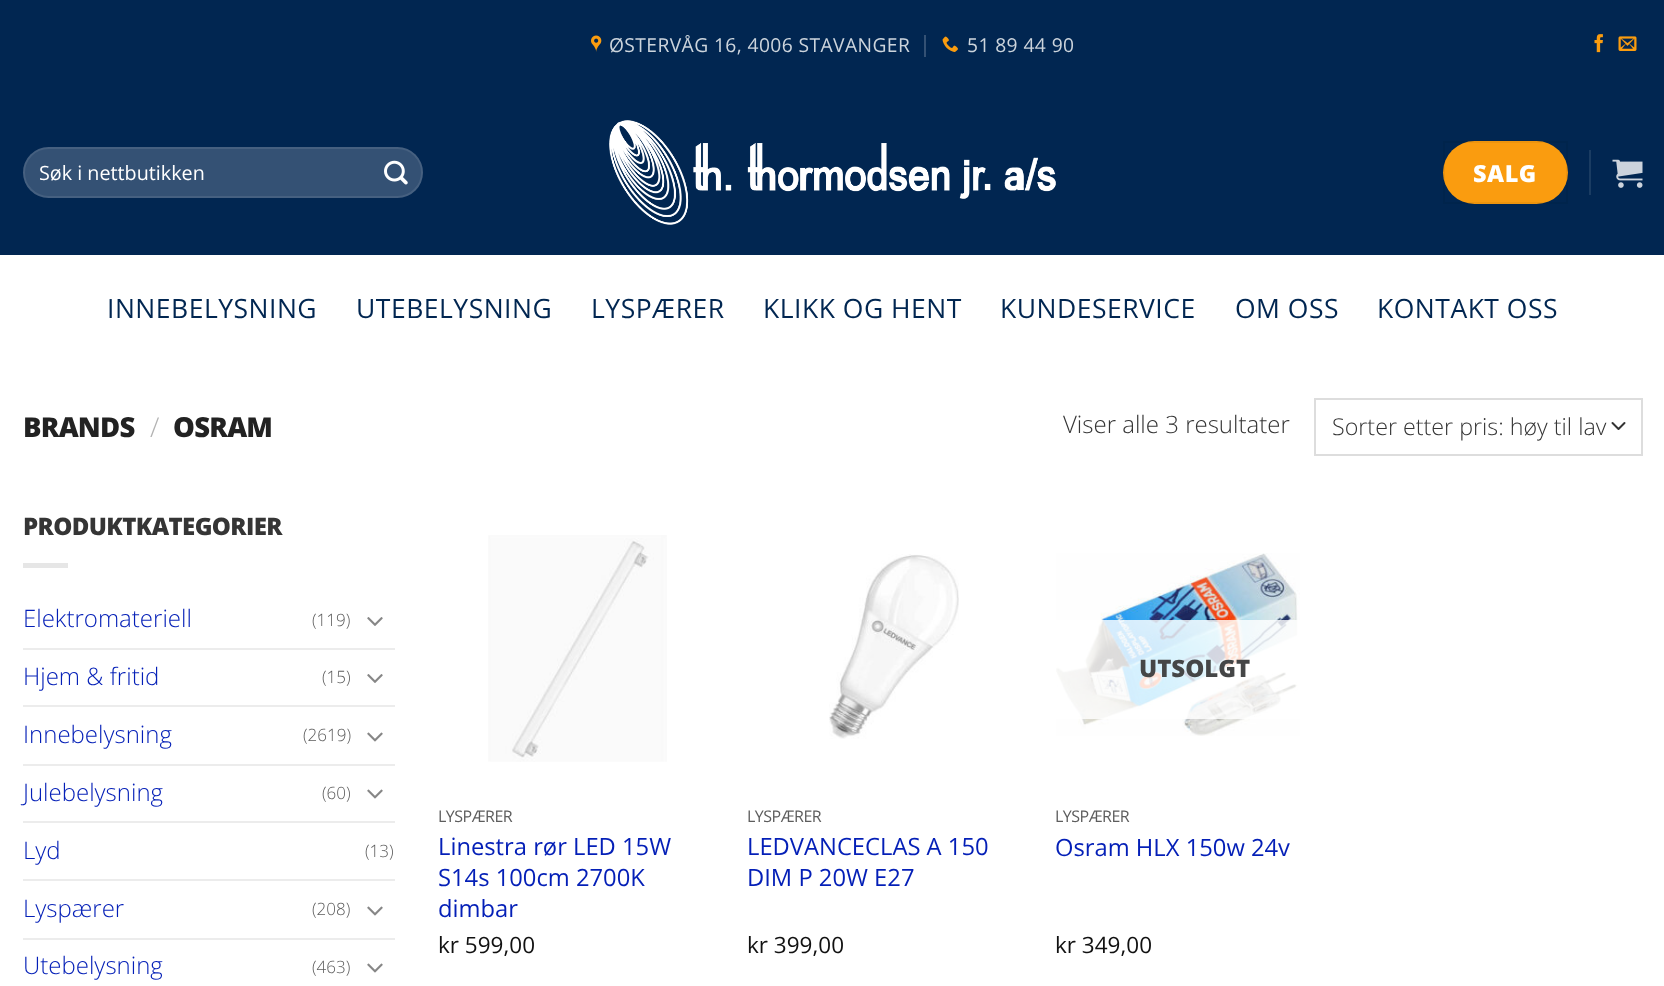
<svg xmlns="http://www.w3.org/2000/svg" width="1664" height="986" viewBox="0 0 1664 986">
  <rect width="100%" height="100%" fill="rgb(255,255,255)"/>
  <rect x="0" y="0" width="1664" height="255" fill="rgb(1,38,81)"/>
  <image x="591" y="35" width="11" height="17" href="pic1.png"/>
  <text x="609" y="52" font-family="Open Sans" font-size="19.25" letter-spacing="0.4" fill="rgb(204,212,220)">ØSTERVÅG 16, 4006 STAVANGER</text>
  <rect x="924" y="35" width="2" height="22" fill="rgb(52,81,116)"/>
  <image x="942" y="36" width="16" height="16" href="pic2.png"/>
  <text x="967" y="52" font-family="Open Sans" font-size="19.25" letter-spacing="0.4" fill="rgb(204,212,220)">51 89 44 90</text>
  <image x="1594" y="34" width="9" height="19" href="pic3.png"/>
  <image x="1618" y="36" width="19" height="15" href="pic4.png"/>
  <rect x="23" y="147" width="400" height="51" rx="25.5" fill="rgb(52,81,116)"/>
  <rect x="24" y="148" width="398" height="49" rx="24.5" fill="none" stroke="rgba(255,255,255,0.09)" stroke-width="2"/>
  <text x="39" y="180" font-family="Open Sans" font-size="19.75" fill="rgb(255,255,255)">Søk i nettbutikken</text>
  <image x="384" y="160" width="24" height="25" href="pic5.png"/>
  <image x="609" y="120" width="447" height="105" href="pic6.png"/>
  <rect x="1443" y="141" width="125" height="63" rx="31.5" fill="rgb(250,156,15)"/>
  <rect x="1444" y="142" width="123" height="61" fill="none" stroke="rgba(0,0,0,0.05)" stroke-width="2"/>
  <text x="1473" y="182" font-family="Open Sans" font-size="23.5" font-weight="800" letter-spacing="0.5" fill="rgb(255,255,255)">SALG</text>
  <rect x="1589" y="150" width="2" height="45" fill="rgb(26,60,98)"/>
  <image x="1612" y="159" width="31" height="29" href="pic7.png"/>
  <g font-family="Open Sans" font-size="26.5" letter-spacing="0.5" fill="rgb(1,38,81)">
    <text x="107" y="318">INNEBELYSNING</text>
    <text x="356" y="318">UTEBELYSNING</text>
    <text x="591" y="318">LYSPÆRER</text>
    <text x="763" y="318">KLIKK OG HENT</text>
    <text x="1000" y="318">KUNDESERVICE</text>
    <text x="1235" y="318">OM OSS</text>
    <text x="1377" y="318">KONTAKT OSS</text>
  </g>
  <text x="23" y="437" font-family="Open Sans" font-size="27.5" font-weight="800" letter-spacing="-0.75" fill="rgb(34,34,34)">BRANDS</text>
  <text x="150" y="437" font-family="Open Sans" font-size="27.5" font-weight="300" letter-spacing="-0.75" fill="rgb(178,178,178)">/</text>
  <text x="173" y="437" font-family="Open Sans" font-size="27.5" font-weight="800" letter-spacing="-0.75" fill="rgb(34,34,34)">OSRAM</text>
  <text x="1063" y="433" font-family="Open Sans" font-size="24" font-weight="300" fill="rgb(53,53,53)">Viser alle 3 resultater</text>
  <path d="M1612.5 423L1618.5 429L1624.5 423" fill="none" stroke="rgb(51,51,51)" stroke-width="2" stroke-linecap="round" stroke-linejoin="round"/>
  <rect x="1315" y="399" width="327" height="56" fill="none" stroke="rgb(221,221,221)" stroke-width="2"/>
  <text x="1332" y="435" font-family="Open Sans" font-size="23.25" font-weight="300" fill="rgb(53,53,53)">Sorter etter pris: høy til lav</text>
  <text x="23" y="535" font-family="Open Sans" font-size="24" font-weight="800" letter-spacing="-0.6" fill="rgb(53,53,53)">PRODUKTKATEGORIER</text>
  <rect x="23" y="563" width="45" height="5" fill="rgb(230,230,230)"/>
  <text x="23" y="627" font-family="Open Sans" font-size="24" font-weight="300" fill="rgb(4,31,183)">Elektromateriell</text>
  <text x="312" y="626" font-family="Open Sans" font-size="17" font-weight="300" fill="rgb(93,93,93)">(119)</text>
  <image x="367" y="617" width="16" height="9" href="pic8.png"/>
  <rect x="23" y="648" width="372" height="2" fill="rgb(236,236,236)"/>
  <text x="23" y="685" font-family="Open Sans" font-size="24" font-weight="300" fill="rgb(4,31,183)">Hjem &amp; fritid</text>
  <text x="322" y="683" font-family="Open Sans" font-size="17" font-weight="300" fill="rgb(93,93,93)">(15)</text>
  <image x="367" y="674" width="16" height="9" href="pic8.png"/>
  <rect x="23" y="705" width="372" height="2" fill="rgb(236,236,236)"/>
  <text x="23" y="743" font-family="Open Sans" font-size="24" font-weight="300" fill="rgb(4,31,183)">Innebelysning</text>
  <text x="303" y="741" font-family="Open Sans" font-size="17" font-weight="300" fill="rgb(93,93,93)">(2619)</text>
  <image x="367" y="732" width="16" height="10" href="pic9.png"/>
  <rect x="23" y="764" width="372" height="2" fill="rgb(236,236,236)"/>
  <text x="23" y="801" font-family="Open Sans" font-size="24" font-weight="300" fill="rgb(4,31,183)">Julebelysning</text>
  <text x="322" y="799" font-family="Open Sans" font-size="17" font-weight="300" fill="rgb(93,93,93)">(60)</text>
  <image x="367" y="789" width="16" height="10" href="pic9.png"/>
  <rect x="23" y="821" width="372" height="2" fill="rgb(236,236,236)"/>
  <text x="23" y="859" font-family="Open Sans" font-size="24" font-weight="300" fill="rgb(4,31,183)">Lyd</text>
  <text x="365" y="857" font-family="Open Sans" font-size="17" font-weight="300" fill="rgb(93,93,93)">(13)</text>
  <rect x="23" y="879" width="372" height="2" fill="rgb(236,236,236)"/>
  <text x="23" y="917" font-family="Open Sans" font-size="24" font-weight="300" fill="rgb(4,31,183)">Lyspærer</text>
  <text x="312" y="915" font-family="Open Sans" font-size="17" font-weight="300" fill="rgb(93,93,93)">(208)</text>
  <image x="367" y="906" width="16" height="10" href="pic9.png"/>
  <rect x="23" y="938" width="372" height="2" fill="rgb(236,236,236)"/>
  <text x="23" y="974" font-family="Open Sans" font-size="24" font-weight="300" fill="rgb(4,31,183)">Utebelysning</text>
  <text x="312" y="973" font-family="Open Sans" font-size="17" font-weight="300" fill="rgb(93,93,93)">(463)</text>
  <image x="367" y="963" width="16" height="10" href="pic9.png"/>
  <image x="488" y="535" width="179" height="227" href="pic10.png"/>
  <text x="438" y="822" font-family="Open Sans" font-size="16" letter-spacing="-0.5" fill="rgb(93,93,93)">LYSPÆRER</text>
  <g font-family="Open Sans" font-size="23.75" fill="rgb(4,31,183)">
    <text>
      <tspan x="438" y="855">Linestra rør LED 15W</tspan>
      <tspan x="438" y="886">S14s 100cm 2700K</tspan>
      <tspan x="438" y="917">dimbar</tspan>
    </text>
  </g>
  <text x="438" y="953" font-family="Open Sans" font-size="22.5" fill="rgb(17,17,17)">kr 599,00</text>
  <image x="829" y="554" width="130" height="185" href="pic11.png"/>
  <text x="747" y="822" font-family="Open Sans" font-size="16" letter-spacing="-0.5" fill="rgb(93,93,93)">LYSPÆRER</text>
  <g font-family="Open Sans" font-size="23.75" fill="rgb(4,31,183)">
    <text>
      <tspan x="747" y="855">LEDVANCECLAS A 150</tspan>
      <tspan x="747" y="886">DIM P 20W E27</tspan>
    </text>
  </g>
  <text x="747" y="953" font-family="Open Sans" font-size="22.5" fill="rgb(17,17,17)">kr 399,00</text>
  <image x="1056" y="553" width="244" height="183" href="pic12.png"/>
  <rect x="1056" y="620" width="244" height="99" fill="rgba(255,255,255,0.81)"/>
  <text x="1139" y="677" font-family="Open Sans" font-size="24" font-weight="800" fill="rgb(69,70,71)">UTSOLGT</text>
  <text x="1055" y="822" font-family="Open Sans" font-size="16" letter-spacing="-0.5" fill="rgb(93,93,93)">LYSPÆRER</text>
  <text x="1055" y="856" font-family="Open Sans" font-size="23.75" fill="rgb(4,31,183)">Osram HLX 150w 24v</text>
  <text x="1055" y="953" font-family="Open Sans" font-size="22.5" fill="rgb(17,17,17)">kr 349,00</text>
</svg>
